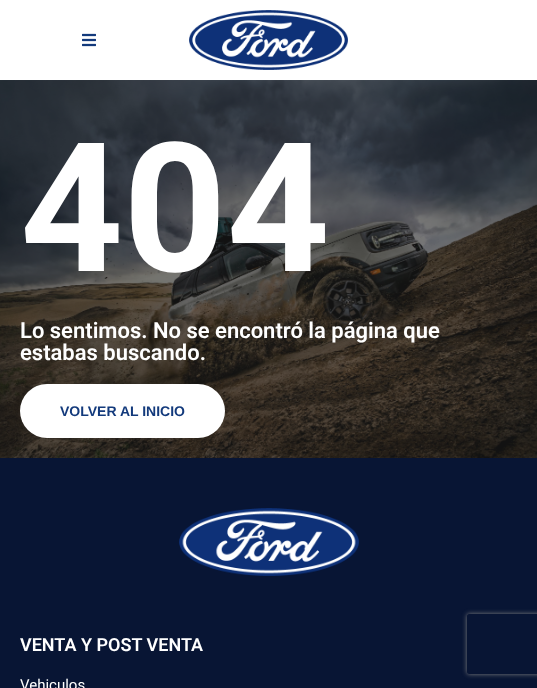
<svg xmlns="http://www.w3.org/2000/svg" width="537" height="688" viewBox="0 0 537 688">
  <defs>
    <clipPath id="clip1"><path d="M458 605H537V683H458ZM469 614H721C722 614 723 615 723 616V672C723 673 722 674 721 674H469C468 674 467 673 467 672V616C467 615 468 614 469 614Z" clip-rule="evenodd"/></clipPath>
  </defs>
  <rect width="100%" height="100%" fill="rgb(255,255,255)"/>
  <image x="82" y="33" width="14" height="14" href="pic1.png"/>
  <image x="189" y="10" width="159" height="60" href="pic2.png"/>
  <rect x="0" y="80" width="537" height="378" fill="rgb(31,31,31)"/>
  <image x="0" y="80" width="537" height="378" href="pic3.png"/>
  <text x="20" y="271" font-family="Roboto" font-size="180" font-weight="bold" fill="rgb(255,255,255)">404</text>
  <g font-family="Roboto" font-size="22" font-weight="600" fill="rgb(255,255,255)">
    <text>
      <tspan x="20" y="338">Lo sentimos. No se encontró la página que</tspan>
      <tspan x="20" y="360">estabas buscando.</tspan>
    </text>
  </g>
  <rect x="20" y="384" width="205" height="54" rx="27" fill="rgb(255,255,255)"/>
  <text x="60" y="416" font-family="Liberation Sans" font-size="14" font-weight="bold" fill="rgb(19,58,124)">VOLVER AL INICIO</text>
  <rect x="0" y="458" width="537" height="230" fill="rgb(8,21,52)"/>
  <image x="179" y="508" width="180" height="68" href="pic4.png"/>
  <text x="20" y="651" font-family="Roboto" font-size="18" font-weight="600" fill="rgb(255,255,255)">VENTA Y POST VENTA</text>
  <text x="20" y="690" font-family="Roboto" font-size="15" fill="rgb(255,255,255)">Vehiculos</text>
  <g clip-path="url(#clip1)">
    <rect x="467" y="614" width="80" height="60" rx="2" fill="rgb(128,128,128)" filter="blur(2.5px)"/>
  </g>
</svg>
